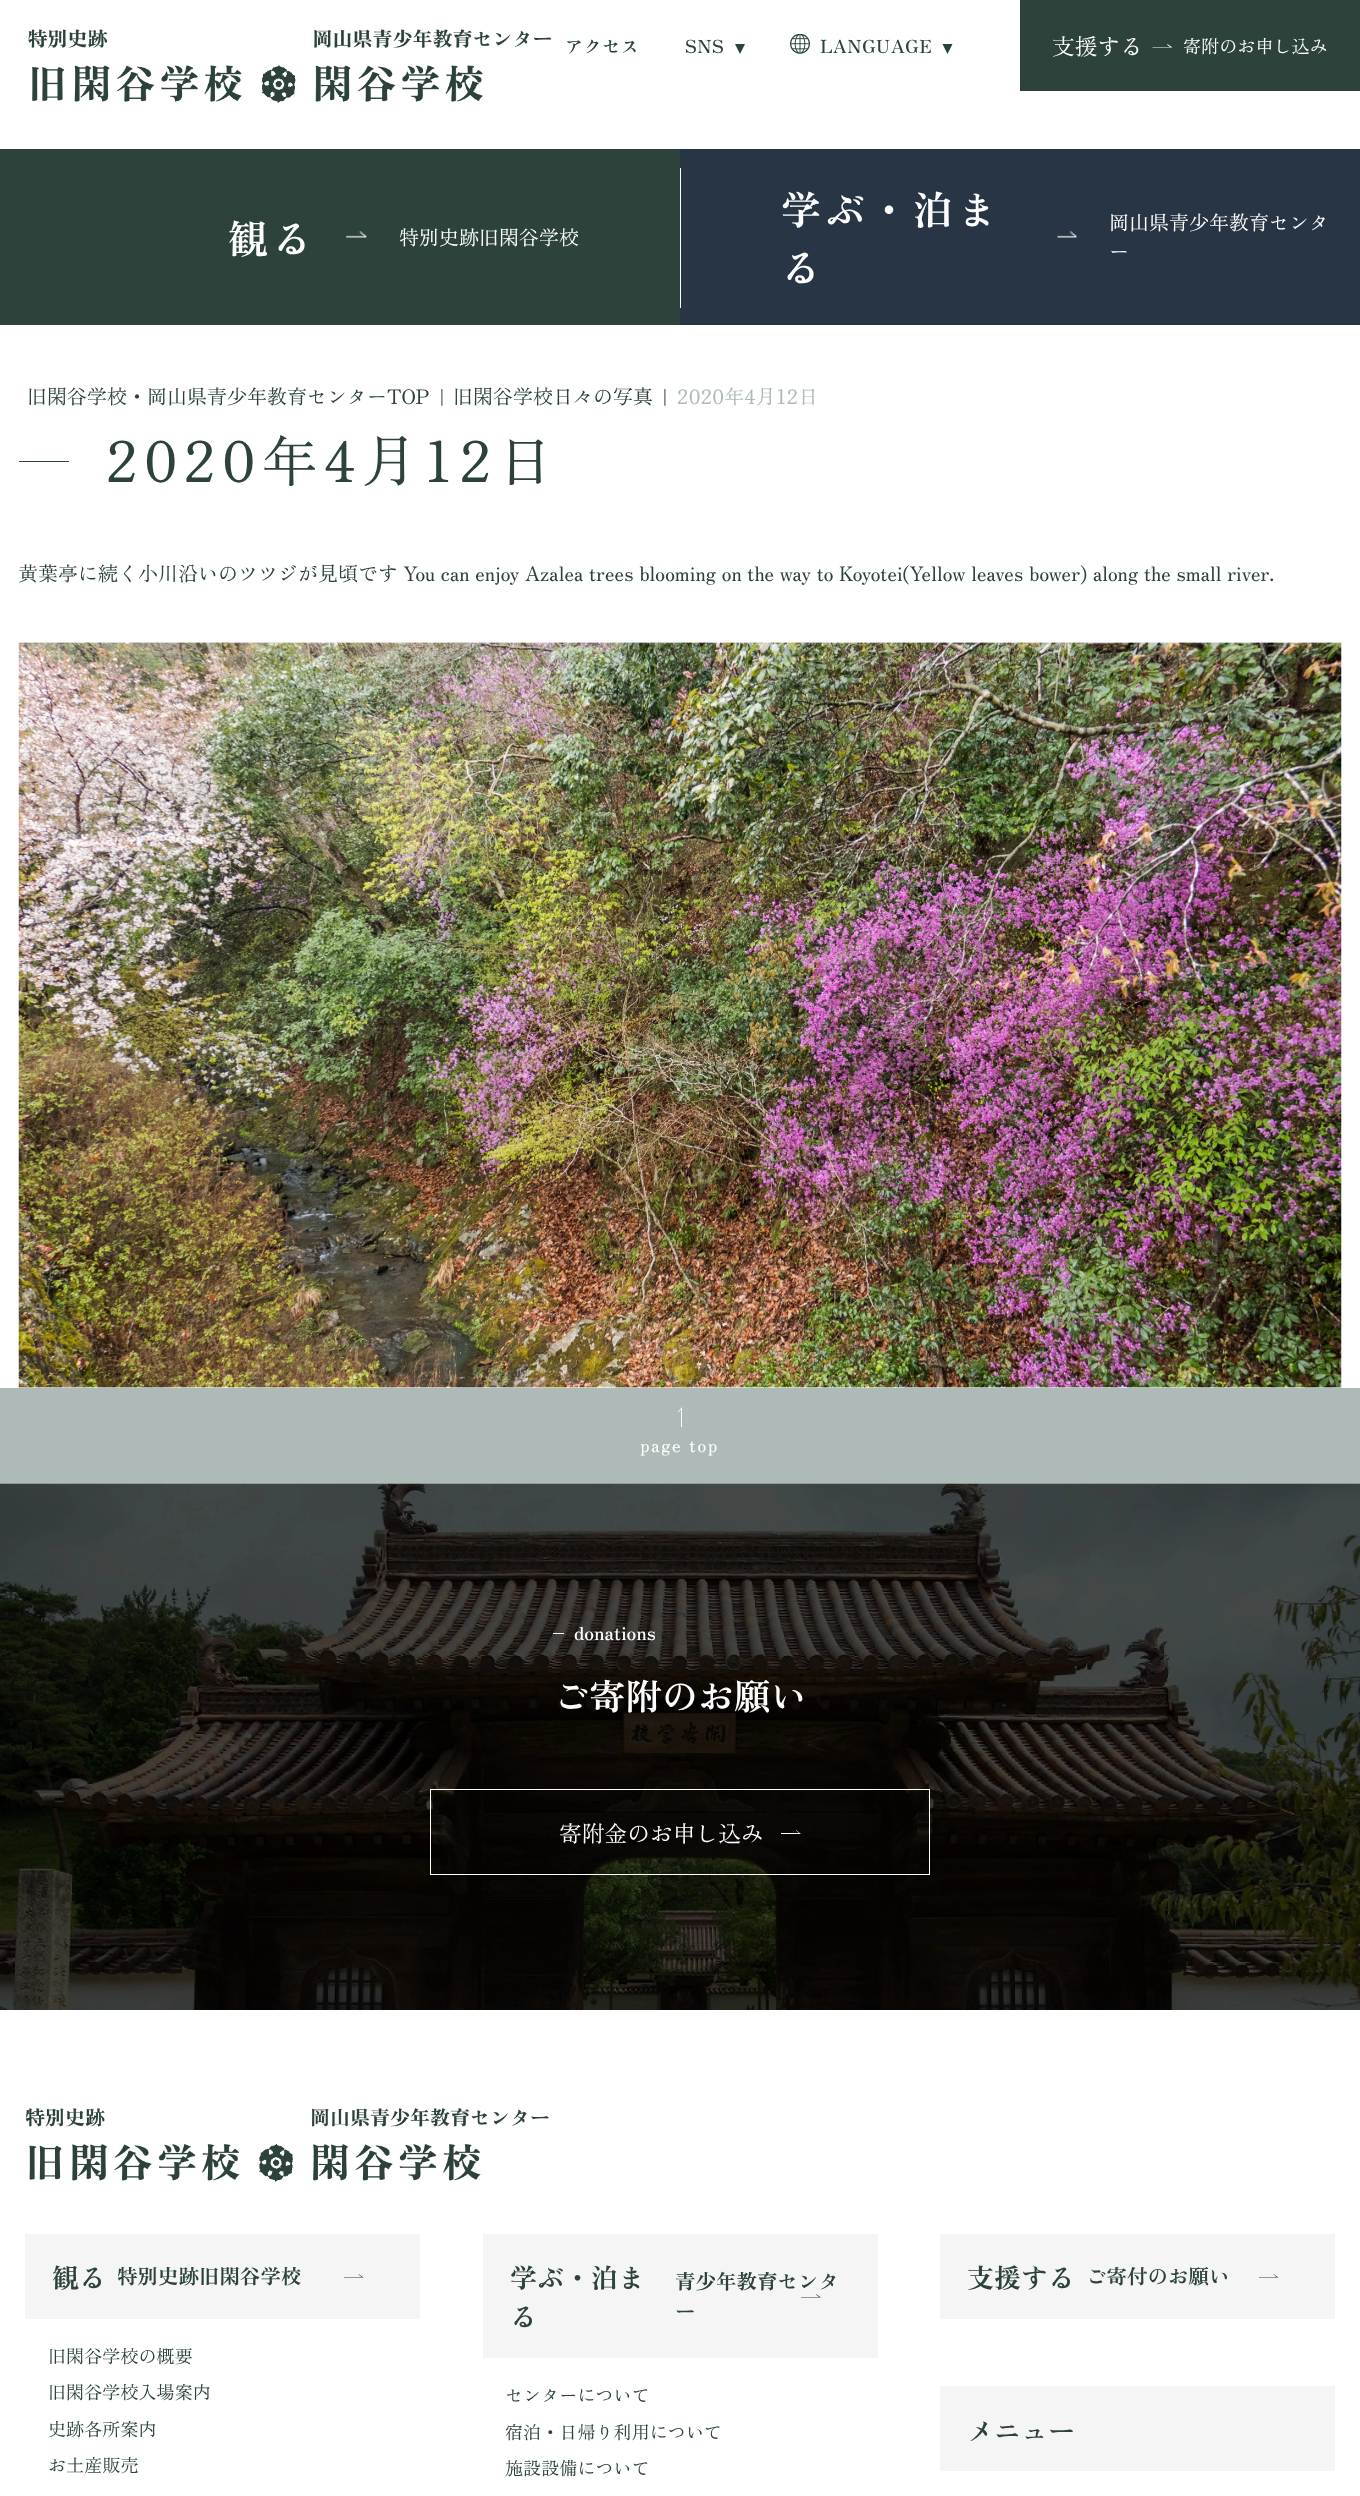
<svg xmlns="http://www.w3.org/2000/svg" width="1360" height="2496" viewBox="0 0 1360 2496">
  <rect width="100%" height="100%" fill="rgb(255,255,255)"/>
  <image x="28" y="29" width="524" height="74" href="pic1.png"/>
  <g font-family="Zen Old Mincho" font-size="18.1" font-weight="bold" letter-spacing="0.5" fill="rgb(44,66,59)">
    <text x="565" y="53">アクセス</text>
    <text x="685" y="53">SNS</text>
  </g>
  <path d="M735 44H745L740 54Z" fill="rgb(44,66,59)"/>
  <image x="790" y="34" width="20" height="20" href="pic2.png"/>
  <text x="820" y="53" font-family="Zen Old Mincho" font-size="18.1" font-weight="bold" letter-spacing="0.5" fill="rgb(44,66,59)">LANGUAGE</text>
  <path d="M942.5 44H952.5L947.5 54Z" fill="rgb(44,66,59)"/>
  <rect x="1020" y="0" width="340" height="91" fill="rgb(44,66,59)"/>
  <text x="1052" y="55" font-family="Zen Old Mincho" font-size="22.75" fill="rgb(255,255,255)">支援する</text>
  <path d="M1172.5 47.5H1152.5V47H1170L1167 44.5L1167.5 44Z" fill="rgb(255,255,255)"/>
  <text x="1183" y="53" font-family="Zen Old Mincho" font-size="18.1" fill="rgb(255,255,255)">寄附のお申し込み</text>
  <rect x="0" y="149" width="680" height="176" fill="rgb(44,66,59)"/>
  <rect x="680" y="149" width="680" height="176" fill="rgb(40,53,69)"/>
  <rect x="680" y="168" width="1" height="140" fill="rgb(255,255,255)"/>
  <text x="228" y="254" font-family="Zen Old Mincho" font-size="40" font-weight="bold" letter-spacing="4" fill="rgb(255,255,255)">観る</text>
  <image x="346" y="231" width="21" height="7" href="pic3.png"/>
  <text x="399" y="245" font-family="Zen Old Mincho" font-size="20" fill="rgb(255,255,255)">特別史跡旧閑谷学校</text>
  <g font-family="Zen Old Mincho" font-size="40" font-weight="bold" letter-spacing="4" fill="rgb(255,255,255)">
    <text>
      <tspan x="781" y="225">学ぶ・泊ま</tspan>
      <tspan x="781" y="283">る</tspan>
    </text>
  </g>
  <image x="1057" y="231" width="20" height="7" href="pic4.png"/>
  <g font-family="Zen Old Mincho" font-size="20" fill="rgb(255,255,255)">
    <text>
      <tspan x="1109" y="230">岡山県青少年教育センタ</tspan>
      <tspan x="1109" y="259">ー</tspan>
    </text>
  </g>
  <g font-family="Zen Old Mincho" font-size="20" fill="rgb(44,66,59)">
    <text x="27" y="404">旧閑谷学校・岡山県青少年教育センターTOP</text>
    <text x="440" y="404">|</text>
    <text x="453" y="404">旧閑谷学校日々の写真</text>
    <text x="663" y="404">|</text>
  </g>
  <text x="677" y="404" font-family="Zen Old Mincho" font-size="20" fill="rgb(174,186,183)">2020年4月12日</text>
  <rect x="19" y="461" width="50" height="1" fill="rgb(44,66,59)"/>
  <text x="106" y="482" font-family="Zen Old Mincho" font-size="56.25" letter-spacing="5.6" fill="rgb(44,66,59)">2020年4月12日</text>
  <text x="18" y="581" font-family="Zen Old Mincho" font-size="20" fill="rgb(44,66,59)">黄葉亭に続く小川沿いのツツジが見頃です You can enjoy Azalea trees blooming on the way to Koyotei(Yellow leaves bower) along the small river.</text>
  <image x="18" y="642" width="1324" height="746" href="pic5.png"/>
  <rect x="0" y="1388" width="1360" height="96" fill="rgb(174,186,183)"/>
  <path d="M682 1407V1427H681V1409.5L678.5 1412.5L678 1412Z" fill="rgb(255,255,255)"/>
  <text x="640" y="1452" font-family="Zen Old Mincho" font-size="18.1" letter-spacing="1.75" fill="rgb(255,255,255)">page top</text>
  <image x="0" y="1483" width="1360" height="527" href="pic6.png"/>
  <rect x="553" y="1633" width="11" height="1" fill="rgb(255,255,255)"/>
  <text x="574" y="1640" font-family="Zen Old Mincho" font-size="18.1" font-weight="bold" fill="rgb(255,255,255)">donations</text>
  <text x="553" y="1710" font-family="Zen Old Mincho" font-size="36.25" font-weight="bold" fill="rgb(255,255,255)">ご寄附のお願い</text>
  <rect x="430.5" y="1789.5" width="499" height="85" fill="none" stroke="rgb(255,255,255)"/>
  <text x="559" y="1842" font-family="Zen Old Mincho" font-size="22.75" fill="rgb(255,255,255)">寄附金のお申し込み</text>
  <path d="M801 1834H781V1833H799L796 1830.5V1830Z" fill="rgb(255,255,255)"/>
  <image x="25" y="2108" width="524" height="74" href="pic7.png"/>
  <rect x="25" y="2234" width="395" height="85" fill="rgb(244,245,244)"/>
  <text x="52" y="2288" font-family="Zen Old Mincho" font-size="27" font-weight="bold" fill="rgb(44,66,59)">観る</text>
  <text x="117" y="2284" font-family="Zen Old Mincho" font-size="20.5" font-weight="bold" fill="rgb(44,66,59)">特別史跡旧閑谷学校</text>
  <path d="M363.5 2277.5H344V2277H361.5L358.5 2274.5V2274Z" fill="rgb(44,66,59)"/>
  <g font-family="Zen Old Mincho" font-size="18.1" fill="rgb(44,66,59)">
    <text>
      <tspan x="48" y="2363">旧閑谷学校の概要</tspan>
      <tspan x="48" y="2399">旧閑谷学校入場案内</tspan>
    </text>
    <text>
      <tspan x="48" y="2436">史跡各所案内</tspan>
      <tspan x="48" y="2472">お土産販売</tspan>
    </text>
  </g>
  <rect x="483" y="2234" width="395" height="124" fill="rgb(244,245,244)"/>
  <g font-family="Zen Old Mincho" font-size="27" font-weight="bold" fill="rgb(44,66,59)">
    <text>
      <tspan x="510" y="2288">学ぶ・泊ま</tspan>
      <tspan x="510" y="2327">る</tspan>
    </text>
  </g>
  <g font-family="Zen Old Mincho" font-size="20.5" font-weight="bold" fill="rgb(44,66,59)">
    <text>
      <tspan x="675" y="2289">青少年教育センタ</tspan>
      <tspan x="675" y="2319">ー</tspan>
    </text>
  </g>
  <path d="M821 2297.5H801V2297H819L816 2294.5V2294Z" fill="rgb(44,66,59)"/>
  <g font-family="Zen Old Mincho" font-size="18.1" fill="rgb(44,66,59)">
    <text x="505" y="2402">センターについて</text>
    <text>
      <tspan x="505" y="2439">宿泊・日帰り利用について</tspan>
      <tspan x="505" y="2475">施設設備について</tspan>
    </text>
  </g>
  <rect x="940" y="2234" width="395" height="85" fill="rgb(244,245,244)"/>
  <text x="967" y="2288" font-family="Zen Old Mincho" font-size="27" font-weight="bold" fill="rgb(44,66,59)">支援する</text>
  <text x="1086" y="2284" font-family="Zen Old Mincho" font-size="20.5" font-weight="bold" fill="rgb(44,66,59)">ご寄付のお願い</text>
  <path d="M1278.5 2277.5H1259V2277H1276.5L1273.5 2274.5V2274Z" fill="rgb(44,66,59)"/>
  <rect x="940" y="2386" width="395" height="85" fill="rgb(244,245,244)"/>
  <text x="967" y="2441" font-family="Zen Old Mincho" font-size="27" font-weight="bold" fill="rgb(44,66,59)">メニュー</text>
</svg>
